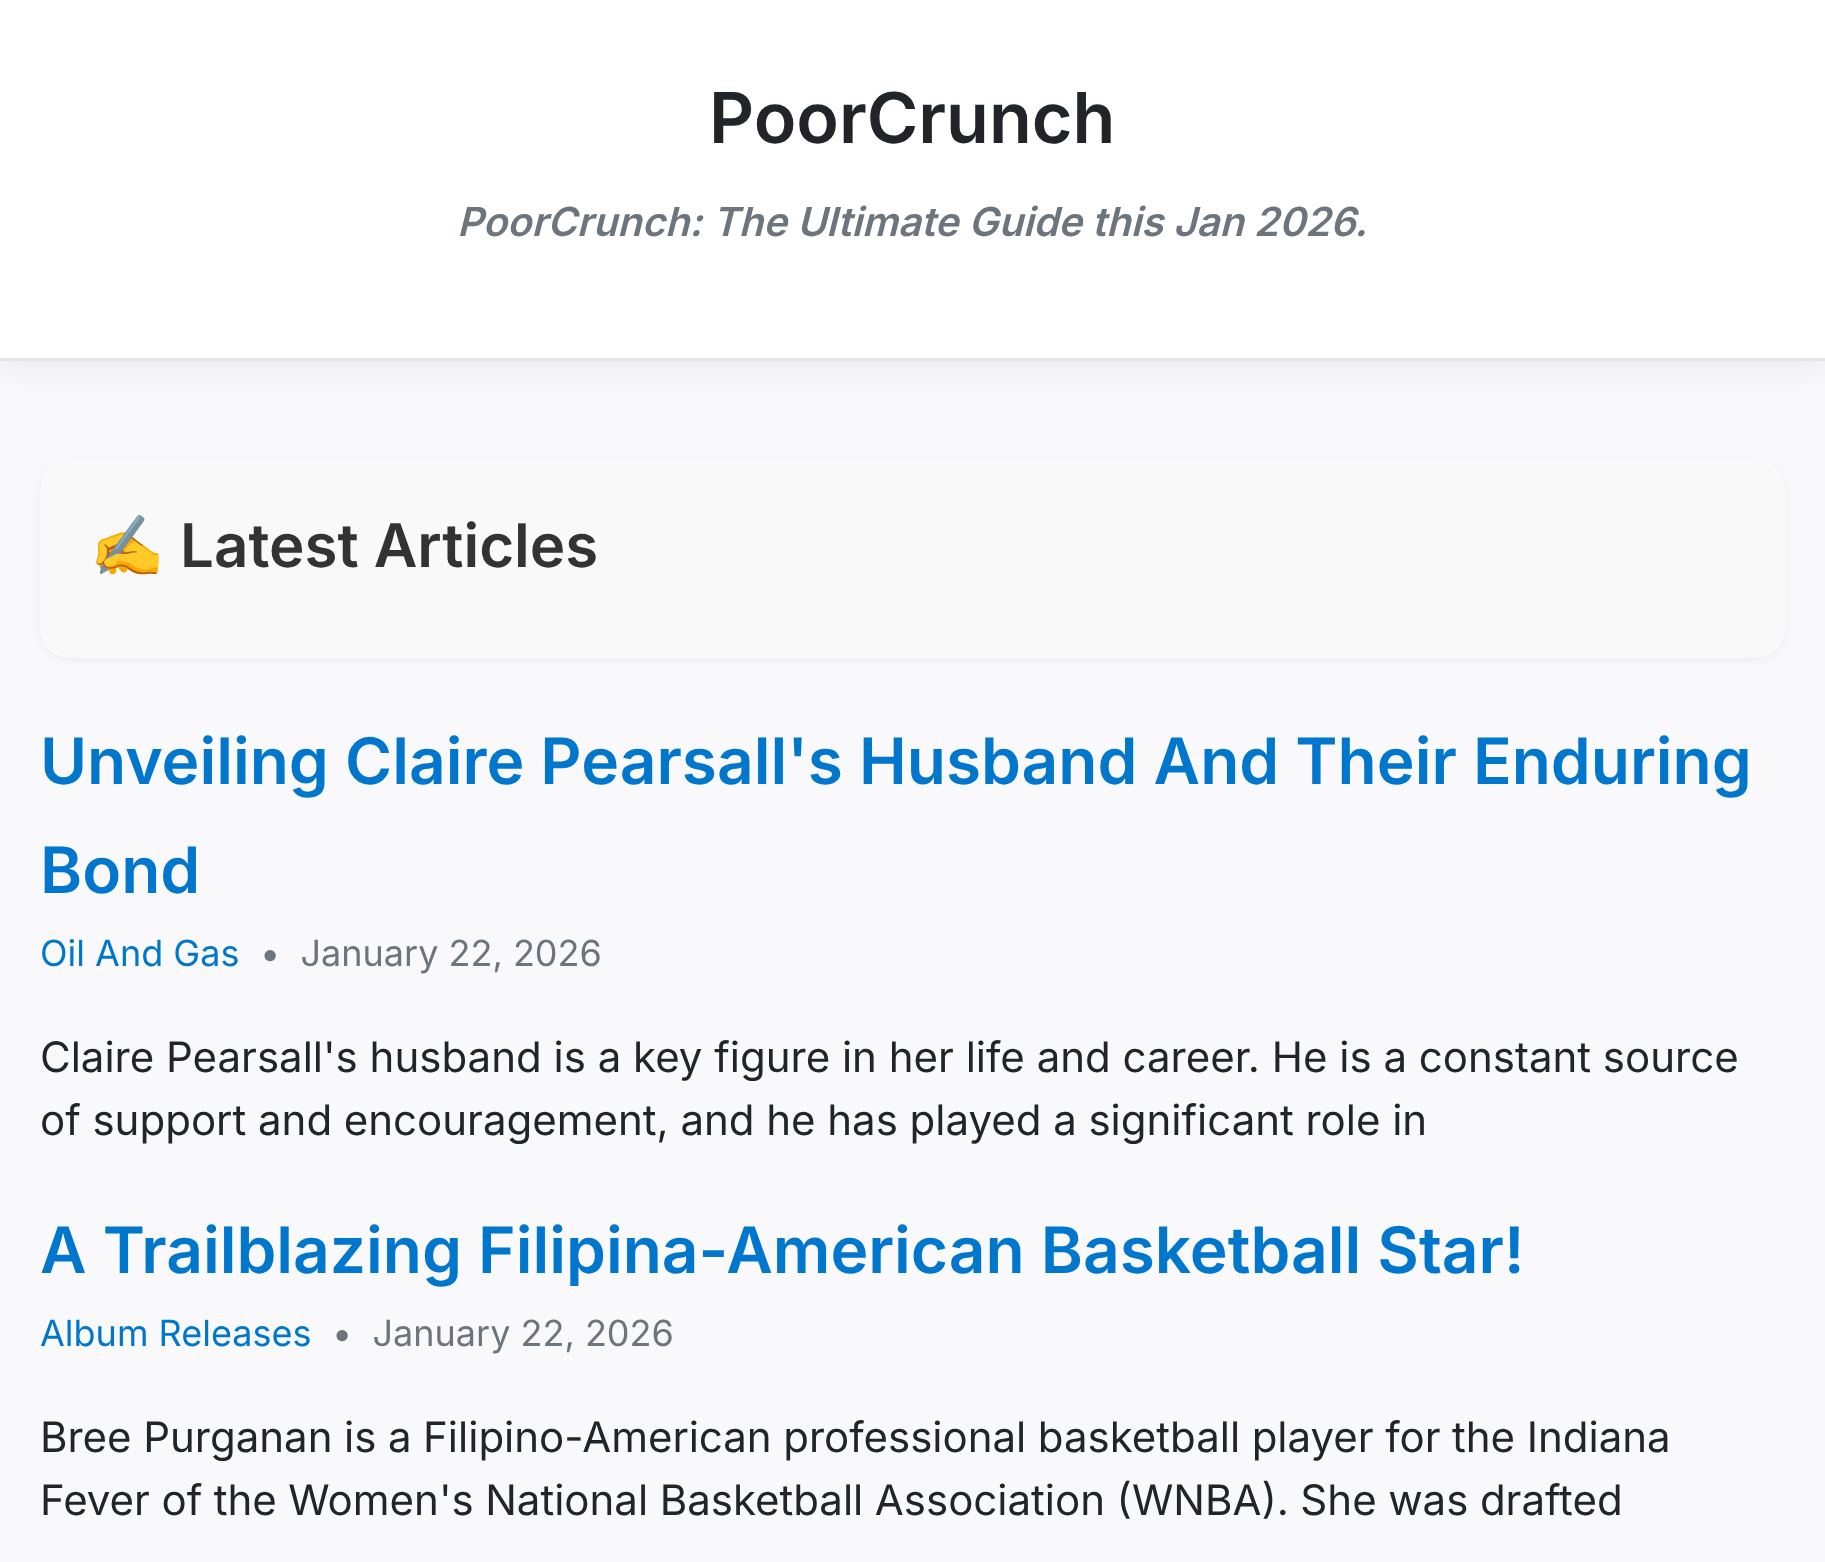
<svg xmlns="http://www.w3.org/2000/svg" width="1825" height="1562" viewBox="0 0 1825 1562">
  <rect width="100%" height="100%" fill="rgb(249,249,251)"/>
  <rect x="0" y="10" width="1825" height="360" fill="rgba(0,0,0,0.06)" filter="blur(15px)"/>
  <rect x="0" y="0" width="1825" height="358" fill="rgb(255,255,255)"/>
  <rect x="0" y="358" width="1825" height="3" fill="rgb(226,230,234)"/>
  <text x="709" y="143" font-family="Inter" font-size="70" font-weight="600" fill="rgb(33,37,41)">PoorCrunch</text>
  <text x="457" y="236" font-family="Inter" font-size="40" font-weight="600" font-style="italic" fill="rgb(108,117,125)">PoorCrunch: The Ultimate Guide this Jan 2026.</text>
  <rect x="40" y="463" width="1745" height="197" rx="30" fill="rgba(0,0,0,0.05)" filter="blur(6px)"/>
  <rect x="40" y="460" width="1745" height="198" rx="30" fill="rgb(249,249,249)"/>
  <text x="90" y="567" font-family="Noto Color Emoji" font-size="60" font-weight="bold" fill="rgb(51,51,51)">✍️</text>
  <text x="180" y="567" font-family="Inter" font-size="60" font-weight="600" fill="rgb(51,51,51)">Latest Articles</text>
  <g font-family="Inter" font-size="64" font-weight="600" fill="rgb(0,119,204)">
    <text>
      <tspan x="40" y="784">Unveiling Claire Pearsall's Husband And Their Enduring</tspan>
      <tspan x="40" y="893">Bond</tspan>
    </text>
  </g>
  <text x="40" y="966" font-family="Inter" font-size="36" fill="rgb(0,119,204)">Oil And Gas</text>
  <text x="260" y="966" font-family="Inter" font-size="36" fill="rgb(108,117,125)" xml:space="preserve">•  January 22, 2026</text>
  <g font-family="Inter" font-size="42" fill="rgb(33,37,41)">
    <text>
      <tspan x="40" y="1072">Claire Pearsall's husband is a key figure in her life and career. He is a constant source</tspan>
      <tspan x="40" y="1135" word-spacing="-0.1">of support and encouragement, and he has played a significant role in</tspan>
    </text>
  </g>
  <text x="40" y="1273" font-family="Inter" font-size="64" font-weight="600" fill="rgb(0,119,204)">A Trailblazing Filipina-American Basketball Star!</text>
  <text x="40" y="1346" font-family="Inter" font-size="36" fill="rgb(0,119,204)">Album Releases</text>
  <text x="332" y="1346" font-family="Inter" font-size="36" fill="rgb(108,117,125)" xml:space="preserve">•  January 22, 2026</text>
  <g font-family="Inter" font-size="42" fill="rgb(33,37,41)">
    <text>
      <tspan x="40" y="1452" word-spacing="-0.25">Bree Purganan is a Filipino-American professional basketball player for the Indiana</tspan>
      <tspan x="40" y="1515" word-spacing="-0.25">Fever of the Women's National Basketball Association (WNBA). She was drafted</tspan>
    </text>
  </g>
</svg>
